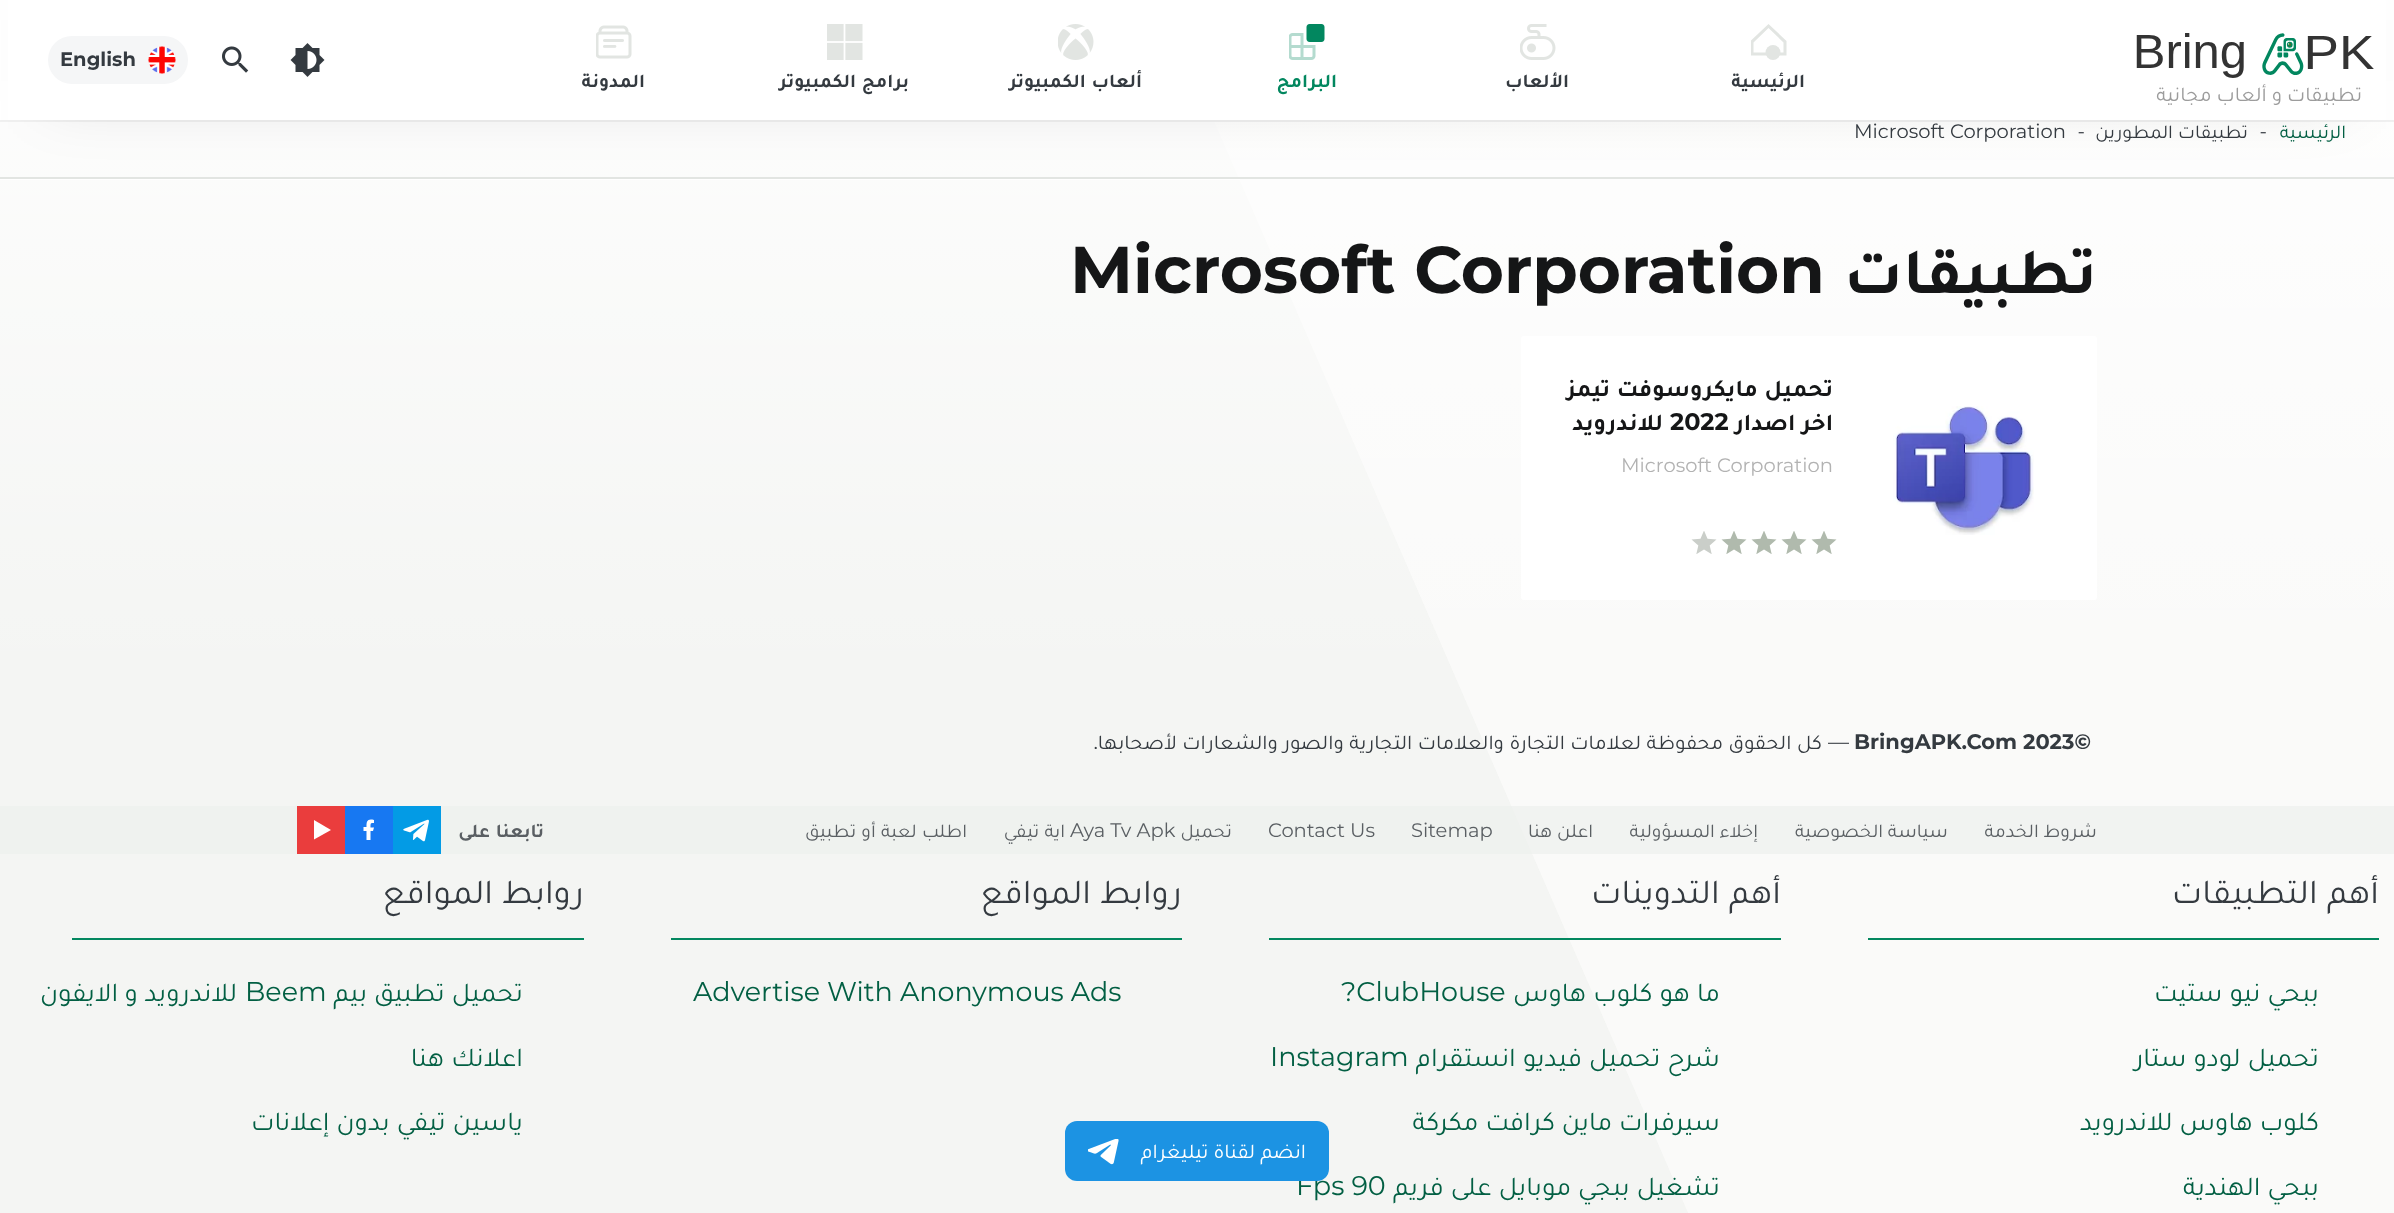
<svg xmlns="http://www.w3.org/2000/svg" width="2394" height="1213" viewBox="0 0 2394 1213">
  <defs>
    <clipPath id="clip1"><rect x="1751" y="24" width="36" height="36"/></clipPath>
  </defs>
  <rect width="100%" height="100%" fill="rgb(255,255,255)"/>
  <image x="0" y="122" width="2394" height="1091" href="pic1.png"/>
  <rect x="0" y="120" width="2394" height="2" fill="rgb(240,240,240)"/>
  <rect x="0" y="179" width="1240" height="1" fill="rgb(255,255,255)"/>
  <rect x="0" y="177" width="2394" height="2" fill="rgb(226,229,226)"/>
  <rect x="48" y="0" width="2298" height="101" fill="rgba(0,0,0,0.12)" filter="blur(30px)"/>
  <rect x="8" y="0" width="2378" height="120" fill="rgb(255,255,255)"/>
  <image x="2136" y="33" width="238" height="72" href="pic2.png"/>
  <image x="290" y="43" width="35" height="34" href="pic3.png"/>
  <image x="222" y="46" width="27" height="27" href="pic4.png"/>
  <rect x="48" y="36" width="140" height="48" rx="24" fill="rgb(245,246,247)"/>
  <image x="148" y="46" width="28" height="28" href="pic5.png"/>
  <text x="60" y="66" font-family="Montserrat" font-size="19.5" font-weight="bold" fill="rgb(52,58,64)">English</text>
  <g clip-path="url(#clip1)">
    <path d="M1768.5 28L1753.5 42.5V52.5H1783.5V42.5L1768.5 28M1768.5 24L1786.5 41V55.5H1750.5V41Z" fill="rgb(226,229,226)"/>
  </g>
  <circle cx="1773" cy="52.5" r="7.5" fill="rgb(226,229,226)"/>
  <text x="1805" y="87" font-family="Tajawal" font-size="19.5" font-weight="bold" direction="rtl" fill="rgb(52,58,64)">الرئيسية</text>
  <image x="1520" y="24" width="36" height="36" href="pic6.png"/>
  <text x="1569" y="87" font-family="Tajawal" font-size="19.5" font-weight="bold" direction="rtl" fill="rgb(52,58,64)">الألعاب</text>
  <image x="1289" y="24" width="36" height="36" href="pic7.png"/>
  <text x="1337" y="87" font-family="Tajawal" font-size="19.5" font-weight="bold" direction="rtl" fill="rgb(2,135,95)">البرامج</text>
  <image x="1058" y="24" width="36" height="36" href="pic8.png"/>
  <text x="1142" y="87" word-spacing="1" font-family="Tajawal" font-size="19.5" font-weight="bold" direction="rtl" fill="rgb(52,58,64)">ألعاب الكمبيوتر</text>
  <image x="827" y="24" width="36" height="36" href="pic9.png"/>
  <text x="909" y="87" word-spacing="1" font-family="Tajawal" font-size="19.5" font-weight="bold" direction="rtl" fill="rgb(52,58,64)">برامج الكمبيوتر</text>
  <image x="596" y="25" width="36" height="34" href="pic10.png"/>
  <text x="645" y="87" font-family="Tajawal" font-size="19.5" font-weight="bold" direction="rtl" fill="rgb(52,58,64)">المدونة</text>
  <text x="2346" y="138" font-family="Tajawal" font-size="19.5" direction="rtl" fill="rgb(2,95,67)">الرئيسية</text>
  <text x="2267" y="138" font-family="Montserrat" font-size="19.5" direction="rtl" fill="rgb(52,58,64)">-</text>
  <text x="2248" y="138" word-spacing="0.5" font-family="Tajawal" font-size="19.5" direction="rtl" fill="rgb(52,58,64)">تطبيقات المطورين</text>
  <text x="2085" y="138" font-family="Montserrat" font-size="19.5" direction="rtl" fill="rgb(52,58,64)">-</text>
  <text x="1854" y="138" font-family="Montserrat" font-size="19.5" fill="rgb(52,58,64)">Microsoft Corporation</text>
  <text x="2097" y="293" font-family="Tajawal" font-size="66" font-weight="bold" direction="rtl" fill="rgb(21,22,23)">تطبيقات</text>
  <text x="1070" y="293" font-family="Montserrat" font-size="66" font-weight="bold" fill="rgb(21,22,23)">Microsoft Corporation</text>
  <rect x="1521" y="336" width="576" height="264" rx="3" fill="rgb(255,255,255)"/>
  <image x="1893" y="406" width="141" height="129" href="pic11.png"/>
  <g font-family="Tajawal" font-size="24" font-weight="bold" direction="rtl" fill="rgb(21,22,23)">
    <text>
      <tspan x="1833" y="396" word-spacing="1">تحميل مايكروسوفت تيمز</tspan>
      <tspan x="1833" y="430" word-spacing="1">اخر اصدار</tspan>
    </text>
  </g>
  <text x="1670" y="430" font-family="Montserrat" font-size="24" font-weight="bold" fill="rgb(21,22,23)">2022</text>
  <text x="1663" y="430" font-family="Tajawal" font-size="24" font-weight="bold" direction="rtl" fill="rgb(21,22,23)">للاندرويد</text>
  <text x="1621" y="472" font-family="Montserrat" font-size="19.5" fill="rgb(178,178,178)">Microsoft Corporation</text>
  <image x="1691" y="531" width="26" height="23" href="pic12.png"/>
  <image x="1721" y="531" width="116" height="23" href="pic13.png"/>
  <text x="1854" y="749" font-family="Montserrat" font-size="21" font-weight="bold" fill="rgb(52,58,64)">BringAPK.Com 2023©</text>
  <text x="1828" y="749" font-family="Montserrat" font-size="21" fill="rgb(52,58,64)">—</text>
  <text x="1822" y="749" word-spacing="0.5" font-family="Tajawal" font-size="21" direction="rtl" fill="rgb(52,58,64)">كل الحقوق محفوظة لعلامات التجارة والعلامات التجارية والصور والشعارات لأصحابها</text>
  <text x="1098" y="749" font-family="Montserrat" font-size="21" direction="rtl" fill="rgb(52,58,64)">.</text>
  <rect x="0" y="806" width="2394" height="48" fill="rgba(237,239,236,0.65)"/>
  <g font-family="Tajawal" font-size="19.5" direction="rtl" fill="rgb(90,95,99)">
    <text x="2097" y="837">شروط الخدمة</text>
    <text x="1948" y="837">سياسة الخصوصية</text>
    <text x="1758" y="837">إخلاء المسؤولية</text>
    <text x="1593" y="837">اعلن هنا</text>
  </g>
  <g font-family="Montserrat" font-size="19.5" fill="rgb(90,95,99)">
    <text x="1411" y="837">Sitemap</text>
    <text x="1268" y="837">Contact Us</text>
  </g>
  <text x="1232" y="837" font-family="Tajawal" font-size="19.5" direction="rtl" fill="rgb(90,95,99)">تحميل</text>
  <text x="1070" y="837" font-family="Montserrat" font-size="19.5" fill="rgb(90,95,99)">Aya Tv Apk</text>
  <g font-family="Tajawal" font-size="19.5" direction="rtl" fill="rgb(90,95,99)">
    <text x="1065" y="837" word-spacing="0.5">اية تيفي</text>
    <text x="967" y="837" word-spacing="0.5">اطلب لعبة أو تطبيق</text>
  </g>
  <text x="544" y="837" word-spacing="1" font-family="Tajawal" font-size="19.5" font-weight="bold" direction="rtl" fill="rgb(90,95,99)">تابعنا على</text>
  <image x="393" y="806" width="48" height="48" href="pic14.png"/>
  <rect x="345" y="806" width="48" height="48" fill="rgb(23,120,242)"/>
  <path d="M373 831L374 827.5H370.5C370.5 823 370.5 823 374 823V820C367 818.5 366.5 821.5 366.5 827H363.5V831H366.5V840H370.5V831Z" fill="rgb(255,255,255)"/>
  <rect x="297" y="806" width="48" height="48" fill="rgb(234,61,61)"/>
  <path d="M314 839.5L331 830L314 820Z" fill="rgb(255,255,255)"/>
  <rect x="1868" y="938" width="511" height="2" fill="rgb(3,135,95)"/>
  <text x="2379" y="903" word-spacing="1" font-family="Tajawal" font-size="35" direction="rtl" fill="rgb(52,58,64)">أهم التطبيقات</text>
  <g font-family="Tajawal" font-size="27" direction="rtl" fill="rgb(2,95,67)">
    <text x="2319" y="1001" word-spacing="0.5">ببحي نيو ستيت</text>
    <text x="2319" y="1066" word-spacing="0.5">تحميل لودو ستار</text>
    <text x="2319" y="1130" word-spacing="0.5">كلوب هاوس للاندرويد</text>
    <text x="2319" y="1195" word-spacing="0.5">ببحي الهندية</text>
  </g>
  <rect x="1269" y="938" width="512" height="2" fill="rgb(3,135,95)"/>
  <text x="1781" y="903" word-spacing="1" font-family="Tajawal" font-size="35" direction="rtl" fill="rgb(52,58,64)">أهم التدوينات</text>
  <text x="1720" y="1001" word-spacing="0.5" font-family="Tajawal" font-size="27" direction="rtl" fill="rgb(2,95,67)">ما هو كلوب هاوس</text>
  <text x="1341" y="1001" font-family="Montserrat" font-size="27" fill="rgb(2,95,67)">?ClubHouse</text>
  <text x="1720" y="1066" word-spacing="0.5" font-family="Tajawal" font-size="27" direction="rtl" fill="rgb(2,95,67)">شرح تحميل فيديو انستقرام</text>
  <text x="1270" y="1066" font-family="Montserrat" font-size="27" fill="rgb(2,95,67)">Instagram</text>
  <g font-family="Tajawal" font-size="27" direction="rtl" fill="rgb(2,95,67)">
    <text x="1720" y="1130" word-spacing="0.5">سيرفرات ماين كرافت مكركة</text>
    <text x="1720" y="1195" word-spacing="0.5">تشغيل ببجي موبايل على فريم</text>
  </g>
  <text x="1296" y="1195" font-family="Montserrat" font-size="27" fill="rgb(2,95,67)">Fps 90</text>
  <rect x="671" y="938" width="511" height="2" fill="rgb(3,135,95)"/>
  <text x="1182" y="903" word-spacing="1" font-family="Tajawal" font-size="35" direction="rtl" fill="rgb(52,58,64)">روابط المواقع</text>
  <text x="693" y="1001" font-family="Montserrat" font-size="27" fill="rgb(2,95,67)">Advertise With Anonymous Ads</text>
  <rect x="72" y="938" width="512" height="2" fill="rgb(3,135,95)"/>
  <text x="584" y="903" word-spacing="1" font-family="Tajawal" font-size="35" direction="rtl" fill="rgb(52,58,64)">روابط المواقع</text>
  <text x="523" y="1001" word-spacing="0.5" font-family="Tajawal" font-size="27" direction="rtl" fill="rgb(2,95,67)">تحميل تطبيق بيم</text>
  <text x="245" y="1001" font-family="Montserrat" font-size="27" fill="rgb(2,95,67)">Beem</text>
  <g font-family="Tajawal" font-size="27" direction="rtl" fill="rgb(2,95,67)">
    <text x="237" y="1001">للاندرويد و الايفون</text>
    <text x="523" y="1066" word-spacing="0.5">اعلانك هنا</text>
    <text x="523" y="1130" word-spacing="0.5">ياسين تيفي بدون إعلانات</text>
  </g>
  <rect x="1065" y="1121" width="264" height="60" rx="12" fill="rgb(28,147,227)"/>
  <text x="1306" y="1158" font-family="Tajawal" font-size="21" direction="rtl" fill="rgb(255,255,255)">انضم لقناة تيليغرام</text>
  <image x="1088" y="1139" width="31" height="26" href="pic15.png"/>
</svg>
